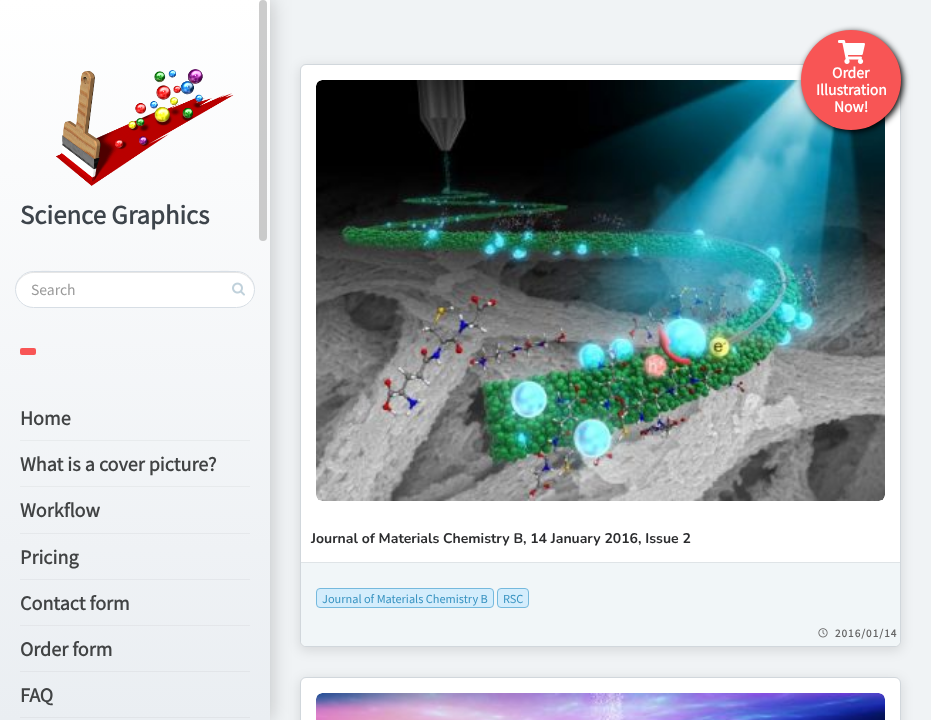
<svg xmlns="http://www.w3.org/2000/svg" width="931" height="720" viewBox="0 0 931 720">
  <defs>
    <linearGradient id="g1" gradientUnits="userSpaceOnUse" x1="135" y1="0" x2="135" y2="720"><stop offset="0" stop-color="rgb(255,255,255)"/><stop offset="1" stop-color="rgb(234,238,242)"/></linearGradient>
  </defs>
  <rect width="100%" height="100%" fill="rgb(240,243,245)"/>
  <rect x="299" y="66" width="603" height="585" rx="7" fill="rgba(0,0,0,0.1)" filter="blur(6px)"/>
  <rect x="300.5" y="64.5" width="600" height="582" rx="5.5" fill="rgb(255,255,255)" stroke="rgb(209,215,220)"/>
  <image x="316" y="80" width="569" height="421" href="pic4.png"/>
  <rect x="803" y="32" width="100" height="100" rx="50" fill="rgb(0,0,0)" filter="blur(3px)"/>
  <circle cx="851" cy="80" r="50" fill="rgb(248,85,85)"/>
  <image x="838" y="40" width="27" height="24" href="pic1.png"/>
  <g font-family="Noto Sans JP" font-size="14" font-weight="bold" fill="rgb(255,255,255)">
    <text x="832" y="78">Order</text>
    <text x="816" y="95">Illustration</text>
    <text x="834" y="112">Now!</text>
  </g>
  <path d="M301 562H900V640C900 643.5 897.5 646 894 646H307C303.5 646 301 643.5 301 640Z" fill="rgb(241,246,248)"/>
  <rect x="301" y="562" width="599" height="1" fill="rgb(223,228,231)"/>
  <rect x="299" y="679" width="603" height="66" rx="7" fill="rgba(0,0,0,0.1)" filter="blur(6px)"/>
  <rect x="300.5" y="677.5" width="600" height="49" rx="5.5" fill="rgb(255,255,255)" stroke="rgb(209,215,220)"/>
  <rect x="-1" y="-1" width="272" height="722" fill="rgba(0,0,0,0.2)" filter="blur(10px)"/>
  <rect x="0" y="0" width="270" height="720" fill="url(#g1)"/>
  <rect x="259" y="0" width="8" height="241" rx="4" fill="rgba(170,170,170,0.6)"/>
  <image x="56" y="69" width="178" height="117" href="pic2.png"/>
  <text x="20" y="224" font-family="Noto Sans JP" font-size="24" font-weight="bold" fill="rgb(61,68,75)">Science Graphics</text>
  <rect x="15" y="271" width="240" height="37" rx="18.5" fill="rgb(255,255,255)"/>
  <path d="M34 273H236C246 273 254 281 254 290C254 264 215 272 203 272H67C55 272 16 264 16 290C16 281 24 273 34 273Z" fill="rgb(230,230,230)"/>
  <rect x="15.5" y="271.5" width="239" height="36" rx="18" fill="none" stroke="rgb(215,222,229)"/>
  <text x="31" y="295" font-family="Noto Sans JP" font-size="14" font-weight="100" fill="rgb(153,153,153)">Search</text>
  <image x="232" y="282" width="13" height="14" href="pic3.png"/>
  <rect x="20" y="348" width="16" height="7" rx="2" fill="rgb(248,85,85)"/>
  <rect x="20" y="440" width="230" height="1" fill="rgb(232,235,237)"/>
  <text x="20" y="425" font-family="Noto Sans JP" font-size="18" font-weight="bold" fill="rgb(65,67,68)">Home</text>
  <rect x="20" y="486" width="230" height="1" fill="rgb(231,234,236)"/>
  <text x="20" y="471" font-family="Noto Sans JP" font-size="18" font-weight="bold" fill="rgb(65,67,68)">What is a cover picture?</text>
  <rect x="20" y="533" width="230" height="1" fill="rgb(229,232,235)"/>
  <text x="20" y="517" font-family="Noto Sans JP" font-size="18" font-weight="bold" fill="rgb(65,67,68)">Workflow</text>
  <rect x="20" y="579" width="230" height="1" fill="rgb(228,231,235)"/>
  <text x="20" y="564" font-family="Noto Sans JP" font-size="18" font-weight="bold" fill="rgb(65,67,68)">Pricing</text>
  <rect x="20" y="625" width="230" height="1" fill="rgb(228,230,234)"/>
  <text x="20" y="610" font-family="Noto Sans JP" font-size="18" font-weight="bold" fill="rgb(65,67,68)">Contact form</text>
  <rect x="20" y="671" width="230" height="1" fill="rgb(226,229,233)"/>
  <text x="20" y="656" font-family="Noto Sans JP" font-size="18" font-weight="bold" fill="rgb(65,67,68)">Order form</text>
  <rect x="20" y="717" width="230" height="1" fill="rgb(225,228,232)"/>
  <text x="20" y="702" font-family="Noto Sans JP" font-size="18" font-weight="bold" fill="rgb(65,67,68)">FAQ</text>
  <text x="311" y="543" font-family="Nunito" font-size="14" font-weight="bold" fill="rgb(44,45,47)">Journal of Materials Chemistry B, 14 January 2016, Issue 2</text>
  <rect x="316.5" y="588.5" width="177" height="19" rx="3.5" fill="rgb(212,237,252)" stroke="rgb(117,185,221)"/>
  <text x="322" y="603" font-family="Noto Sans JP" font-size="11" font-weight="100" fill="rgb(56,147,193)">Journal of Materials Chemistry B</text>
  <rect x="497.5" y="588.5" width="31" height="19" rx="3.5" fill="rgb(212,237,252)" stroke="rgb(117,185,221)"/>
  <text x="503" y="603" font-family="Noto Sans JP" font-size="11" font-weight="100" fill="rgb(56,147,193)">RSC</text>
  <image x="818" y="628" width="10" height="10" href="pic5.png"/>
  <text x="835" y="637" font-family="Noto Sans JP" font-size="10" font-weight="bold" letter-spacing="1" fill="rgb(102,102,102)">2016/01/14</text>
  <image x="316" y="693" width="569" height="27" href="pic6.png"/>
</svg>
